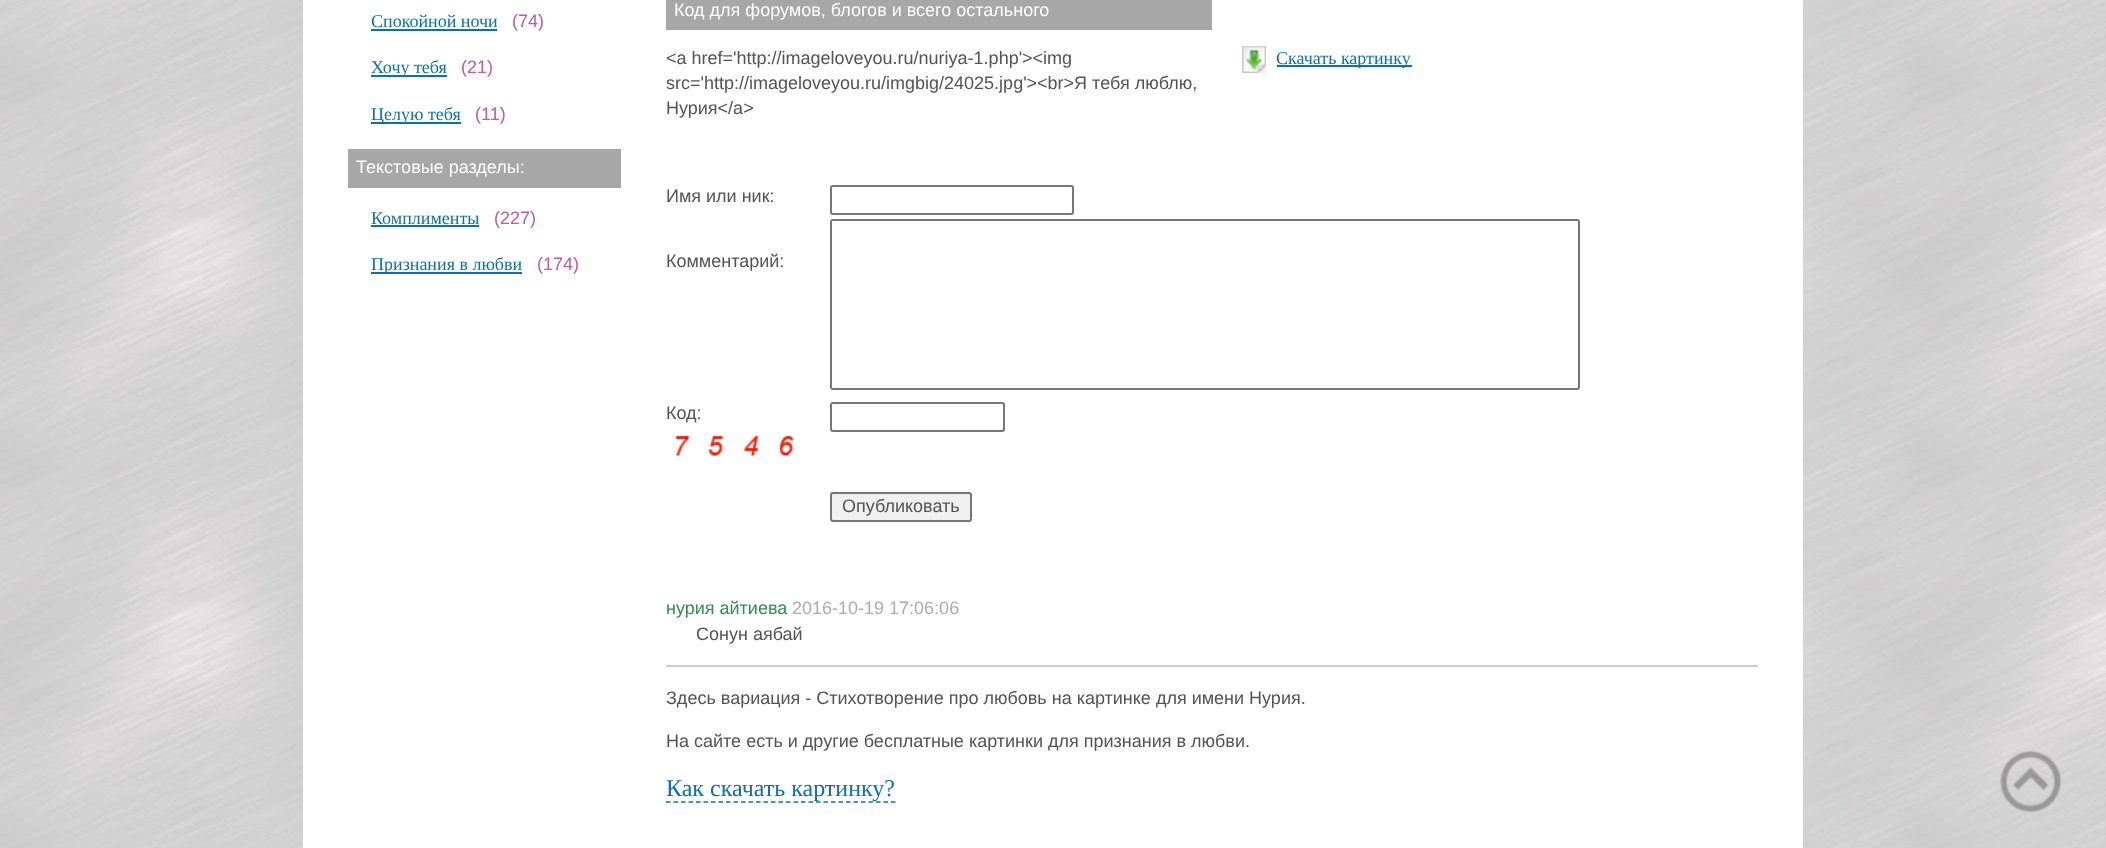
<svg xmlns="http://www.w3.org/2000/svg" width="2106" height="848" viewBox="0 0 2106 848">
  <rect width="100%" height="100%" fill="rgb(255,255,255)"/>
  <image x="0" y="0" width="2106" height="848" href="pic1.png"/>
  <rect x="303" y="0" width="1500" height="848" fill="rgb(255,255,255)"/>
  <text x="371" y="27" font-family="Liberation Serif" font-size="18" fill="rgb(15,112,162)">Спокойной ночи</text>
  <rect x="371" y="29" width="126" height="2" fill="rgb(15,112,162)"/>
  <text x="512" y="27" font-family="Liberation Sans" font-size="18" fill="rgb(192,92,159)">(74)</text>
  <rect x="371" y="75" width="76" height="2" fill="rgb(15,112,162)"/>
  <text x="371" y="73" font-family="Liberation Serif" font-size="18" fill="rgb(15,112,162)">Хочу тебя</text>
  <text x="461" y="73" font-family="Liberation Sans" font-size="18" fill="rgb(192,92,159)">(21)</text>
  <rect x="371" y="122" width="90" height="2" fill="rgb(15,112,162)"/>
  <text x="371" y="120" font-family="Liberation Serif" font-size="18" fill="rgb(15,112,162)">Целую тебя</text>
  <text x="475" y="120" font-family="Liberation Sans" font-size="18" fill="rgb(192,92,159)">(11)</text>
  <rect x="348" y="149" width="273" height="39" fill="rgb(167,167,167)"/>
  <text x="356" y="173" font-family="Liberation Sans" font-size="18" fill="rgb(255,255,255)">Текстовые разделы:</text>
  <text x="371" y="224" font-family="Liberation Serif" font-size="18" fill="rgb(15,112,162)">Комплименты</text>
  <rect x="371" y="225" width="108" height="2" fill="rgb(15,112,162)"/>
  <text x="494" y="224" font-family="Liberation Sans" font-size="18" fill="rgb(192,92,159)">(227)</text>
  <rect x="371" y="272" width="151" height="2" fill="rgb(15,112,162)"/>
  <text x="371" y="270" font-family="Liberation Serif" font-size="18" fill="rgb(15,112,162)">Признания в любви</text>
  <text x="537" y="270" font-family="Liberation Sans" font-size="18" fill="rgb(192,92,159)">(174)</text>
  <rect x="666" y="0" width="546" height="30" fill="rgb(167,167,167)"/>
  <text x="674" y="16" font-family="Liberation Sans" font-size="18" fill="rgb(255,255,255)">Код для форумов, блогов и всего остального</text>
  <g font-family="Liberation Sans" font-size="18" fill="rgb(83,83,83)">
    <text>
      <tspan x="666" y="64">&lt;a href='http://imageloveyou.ru/nuriya-1.php'&gt;&lt;img</tspan>
      <tspan x="666" y="89">src='http://imageloveyou.ru/imgbig/24025.jpg'&gt;&lt;br&gt;Я тебя люблю,</tspan>
      <tspan x="666" y="114">Нурия&lt;/a&gt;</tspan>
    </text>
  </g>
  <image x="1242" y="46" width="24" height="27" href="pic2.png"/>
  <rect x="1277" y="65" width="135" height="2" fill="rgb(15,112,162)"/>
  <text x="1276" y="64" font-family="Liberation Serif" font-size="18" fill="rgb(15,112,162)">Скачать картинку</text>
  <text x="666" y="202" font-family="Liberation Sans" font-size="18" fill="rgb(83,83,83)">Имя или ник:</text>
  <rect x="831" y="186" width="242" height="28" rx="2" fill="none" stroke="rgb(118,118,118)" stroke-width="2"/>
  <text x="666" y="267" font-family="Liberation Sans" font-size="18" fill="rgb(83,83,83)">Комментарий:</text>
  <rect x="831" y="220" width="748" height="169" rx="2" fill="none" stroke="rgb(118,118,118)" stroke-width="2"/>
  <text x="666" y="419" font-family="Liberation Sans" font-size="18" fill="rgb(83,83,83)">Код:</text>
  <rect x="831" y="403" width="173" height="28" rx="2" fill="none" stroke="rgb(118,118,118)" stroke-width="2"/>
  <image x="674" y="435" width="17" height="21" href="pic3.png"/>
  <image x="707" y="435" width="17" height="21" href="pic4.png"/>
  <image x="743" y="435" width="17" height="21" href="pic5.png"/>
  <image x="778" y="435" width="16" height="21" href="pic6.png"/>
  <rect x="831" y="493" width="140" height="28" rx="2" fill="rgb(239,239,239)" stroke="rgb(118,118,118)" stroke-width="2"/>
  <text x="842" y="512" font-family="Liberation Sans" font-size="18" fill="rgb(83,83,83)">Опубликовать</text>
  <text x="666" y="614" font-family="Liberation Sans" font-size="18" fill="rgb(51,140,80)">нурия айтиева</text>
  <text x="792" y="614" font-family="Liberation Sans" font-size="18" fill="rgb(172,172,172)">2016-10-19 17:06:06</text>
  <text x="696" y="640" font-family="Liberation Sans" font-size="18" fill="rgb(83,83,83)">Сонун аябай</text>
  <rect x="666" y="665" width="1092" height="2" fill="rgb(204,204,204)"/>
  <g font-family="Liberation Sans" font-size="18" fill="rgb(83,83,83)">
    <text x="666" y="704">Здесь вариация - Стихотворение про любовь на картинке для имени Нурия.</text>
    <text x="666" y="747">На сайте есть и другие бесплатные картинки для признания в любви.</text>
  </g>
  <path d="M666 802H895.5" fill="none" stroke="rgb(15,112,162)" stroke-width="1.5" stroke-dasharray="4.5 3"/>
  <text x="666" y="796" font-family="Liberation Serif" font-size="24" fill="rgb(15,112,162)">Как скачать картинку?</text>
  <image x="2000" y="751" width="62" height="61" href="pic7.png"/>
</svg>
